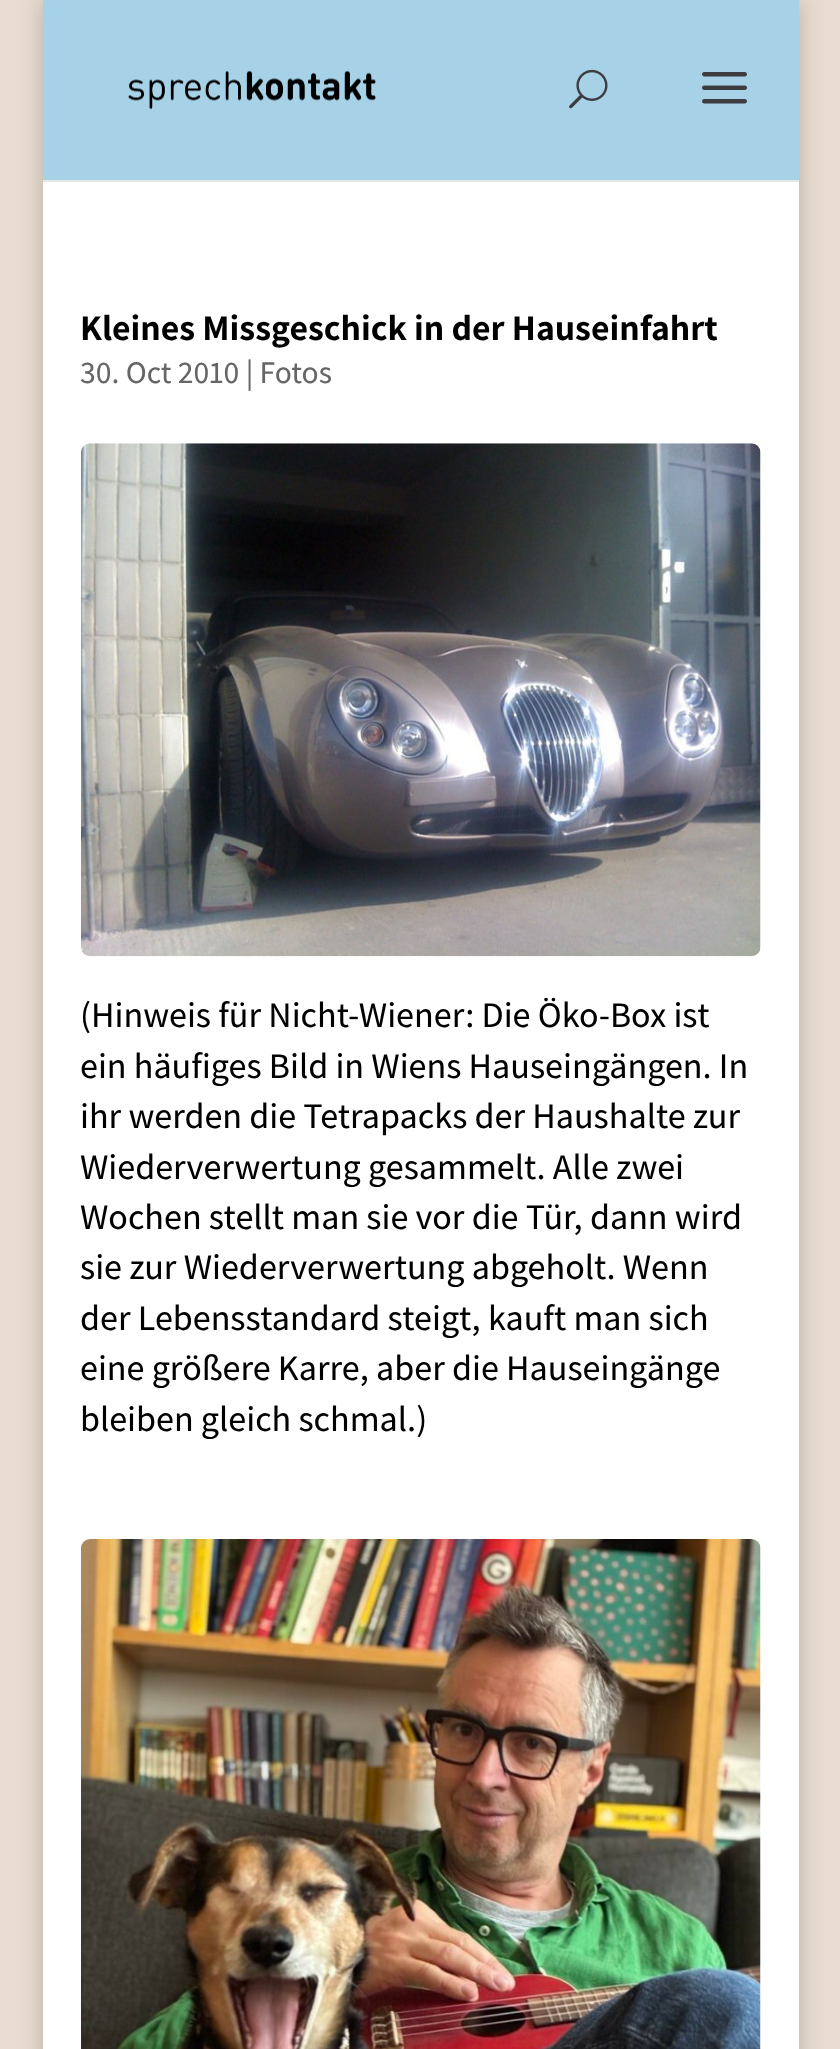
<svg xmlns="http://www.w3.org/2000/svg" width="840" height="2049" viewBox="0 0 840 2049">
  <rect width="100%" height="100%" fill="rgb(232,219,207)"/>
  <rect x="43" y="0" width="756" height="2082" fill="rgba(0,0,0,0.2)" filter="blur(11px)"/>
  <path d="M43 180V182H799V2V180Z" fill="rgb(230,230,230)"/>
  <rect x="43" y="0" width="756" height="180" fill="rgb(166,209,230)"/>
  <image x="128" y="70" width="248" height="40" href="pic1.png"/>
  <image x="569" y="69" width="39" height="40" href="pic2.png"/>
  <image x="702" y="72" width="45" height="32" href="pic3.png"/>
  <rect x="43" y="182" width="756" height="1867" fill="rgb(255,255,255)"/>
  <text x="80" y="340" font-family="Assistant" font-size="36" font-weight="bold" fill="rgb(0,0,0)">Kleines Missgeschick in der Hauseinfahrt</text>
  <text x="80" y="383" font-family="Assistant" font-size="31.5" font-weight="500" fill="rgb(102,102,102)">30. Oct 2010 | Fotos</text>
  <image x="81" y="443" width="680" height="514" href="pic4.png"/>
  <g font-family="Assistant" font-size="36" font-weight="500" fill="rgb(0,0,0)">
    <text>
      <tspan x="80" y="1027">(Hinweis für Nicht-Wiener: Die Öko-Box ist</tspan>
      <tspan x="80" y="1078">ein häufiges Bild in Wiens Hauseingängen. In</tspan>
      <tspan x="80" y="1128">ihr werden die Tetrapacks der Haushalte zur</tspan>
      <tspan x="80" y="1179">Wiederverwertung gesammelt. Alle zwei</tspan>
      <tspan x="80" y="1229">Wochen stellt man sie vor die Tür, dann wird</tspan>
      <tspan x="80" y="1279">sie zur Wiederverwertung abgeholt. Wenn</tspan>
      <tspan x="80" y="1330">der Lebensstandard steigt, kauft man sich</tspan>
      <tspan x="80" y="1380">eine größere Karre, aber die Hauseingänge</tspan>
      <tspan x="80" y="1431">bleiben gleich schmal.)</tspan>
    </text>
  </g>
  <image x="81" y="1539" width="680" height="510" href="pic5.png"/>
</svg>
